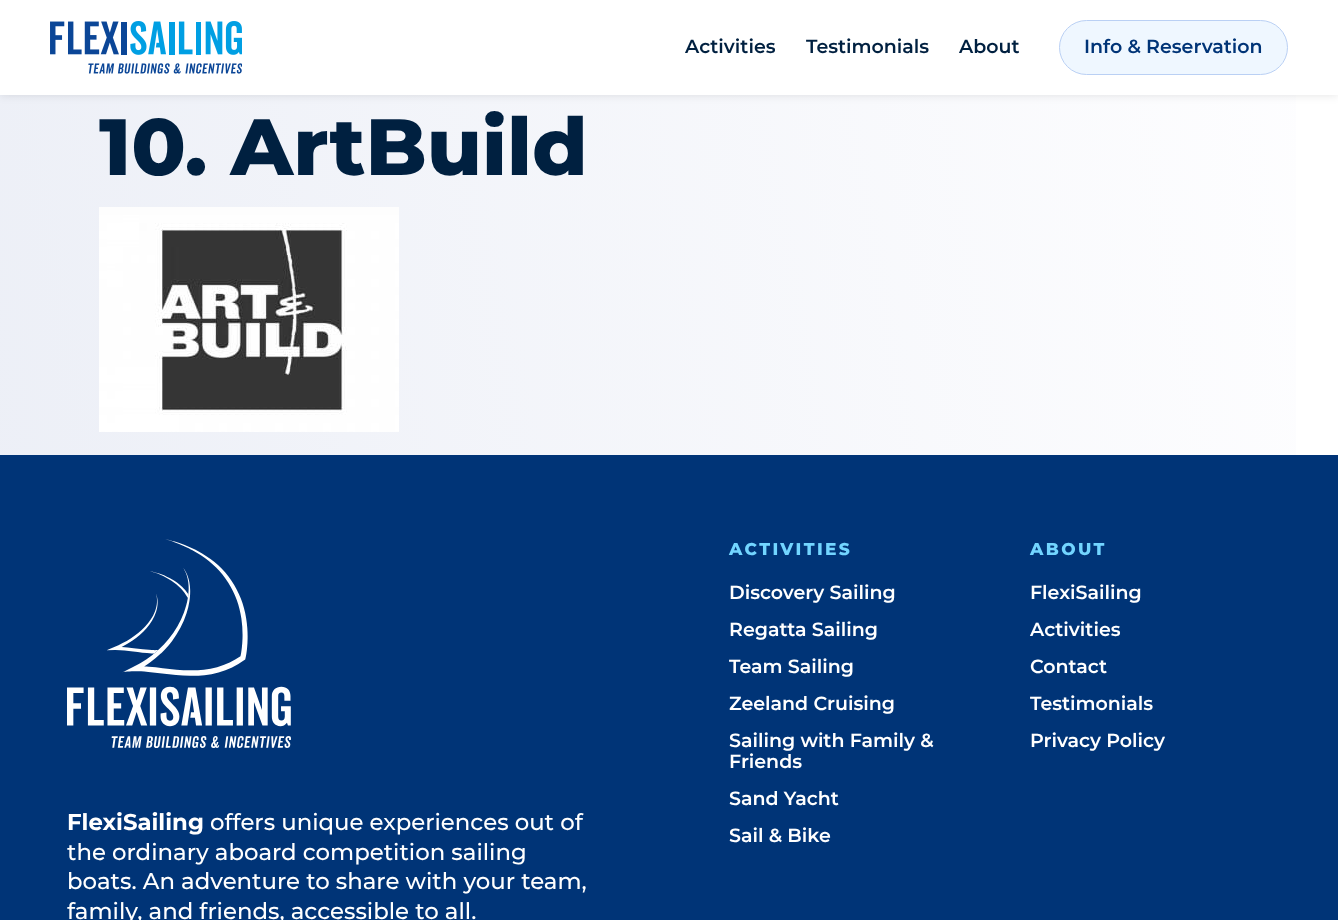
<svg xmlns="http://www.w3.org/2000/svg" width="1338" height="920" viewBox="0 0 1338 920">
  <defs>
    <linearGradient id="g1" gradientUnits="userSpaceOnUse" x1="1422" y1="476" x2="-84" y2="742"><stop offset="0" stop-color="rgb(254,254,255)"/><stop offset="1" stop-color="rgb(235,238,246)"/></linearGradient>
  </defs>
  <rect width="100%" height="100%" fill="rgb(255,255,255)"/>
  <rect x="0" y="95" width="1296" height="360" fill="url(#g1)"/>
  <rect x="0" y="0" width="1338" height="95" fill="rgba(0,0,0,0.11)" filter="blur(5px)"/>
  <rect x="0" y="0" width="1338" height="95" fill="rgb(255,255,255)"/>
  <image x="50" y="21" width="192" height="53" href="pic1.png"/>
  <g font-family="Montserrat" font-size="19" font-weight="600" fill="rgb(0,32,64)">
    <text x="685" y="53">Activities</text>
    <text x="806" y="53">Testimonials</text>
    <text x="959" y="53">About</text>
  </g>
  <rect x="1059.5" y="20.5" width="228" height="54" rx="27" fill="rgb(239,247,255)" stroke="rgb(186,208,244)"/>
  <text x="1084" y="53" font-family="Montserrat" font-size="19" font-weight="600" fill="rgb(0,52,119)">Info &amp; Reservation</text>
  <text x="99" y="175" font-family="Montserrat" font-size="79.75" font-weight="800" fill="rgb(0,32,64)">10. ArtBuild</text>
  <image x="99" y="207" width="300" height="225" href="pic2.png"/>
  <rect x="0" y="455" width="1338" height="465" fill="rgb(0,52,119)"/>
  <text x="729" y="555" font-family="Montserrat" font-size="17" font-weight="800" letter-spacing="2.4" fill="rgb(114,213,255)">ACTIVITIES</text>
  <g font-family="Montserrat" font-size="19" font-weight="600" fill="rgb(255,255,255)">
    <text>
      <tspan x="729" y="599">Discovery Sailing</tspan>
      <tspan x="729" y="636">Regatta Sailing</tspan>
      <tspan x="729" y="673">Team Sailing</tspan>
      <tspan x="729" y="710">Zeeland Cruising</tspan>
      <tspan x="729" y="747">Sailing with Family &amp;</tspan>
      <tspan x="729" y="768">Friends</tspan>
      <tspan x="729" y="805">Sand Yacht</tspan>
      <tspan x="729" y="842">Sail &amp; Bike</tspan>
    </text>
  </g>
  <text x="1030" y="555" font-family="Montserrat" font-size="17" font-weight="800" letter-spacing="2.4" fill="rgb(114,213,255)">ABOUT</text>
  <g font-family="Montserrat" font-size="19" font-weight="600" fill="rgb(255,255,255)">
    <text>
      <tspan x="1030" y="599">FlexiSailing</tspan>
      <tspan x="1030" y="636">Activities</tspan>
      <tspan x="1030" y="673">Contact</tspan>
      <tspan x="1030" y="710">Testimonials</tspan>
      <tspan x="1030" y="747">Privacy Policy</tspan>
    </text>
  </g>
  <image x="67" y="539" width="224" height="209" href="pic3.png"/>
  <text x="67" y="830" font-family="Montserrat" font-size="22.8" font-weight="bold" fill="rgb(255,255,255)">FlexiSailing</text>
  <g font-family="Montserrat" font-size="22.8" font-weight="500" fill="rgb(255,255,255)">
    <text x="210" y="830">offers unique experiences out of</text>
    <text>
      <tspan x="67" y="860">the ordinary aboard competition sailing</tspan>
      <tspan x="67" y="889">boats. An adventure to share with your team,</tspan>
      <tspan x="67" y="919">family, and friends, accessible to all.</tspan>
    </text>
  </g>
</svg>
